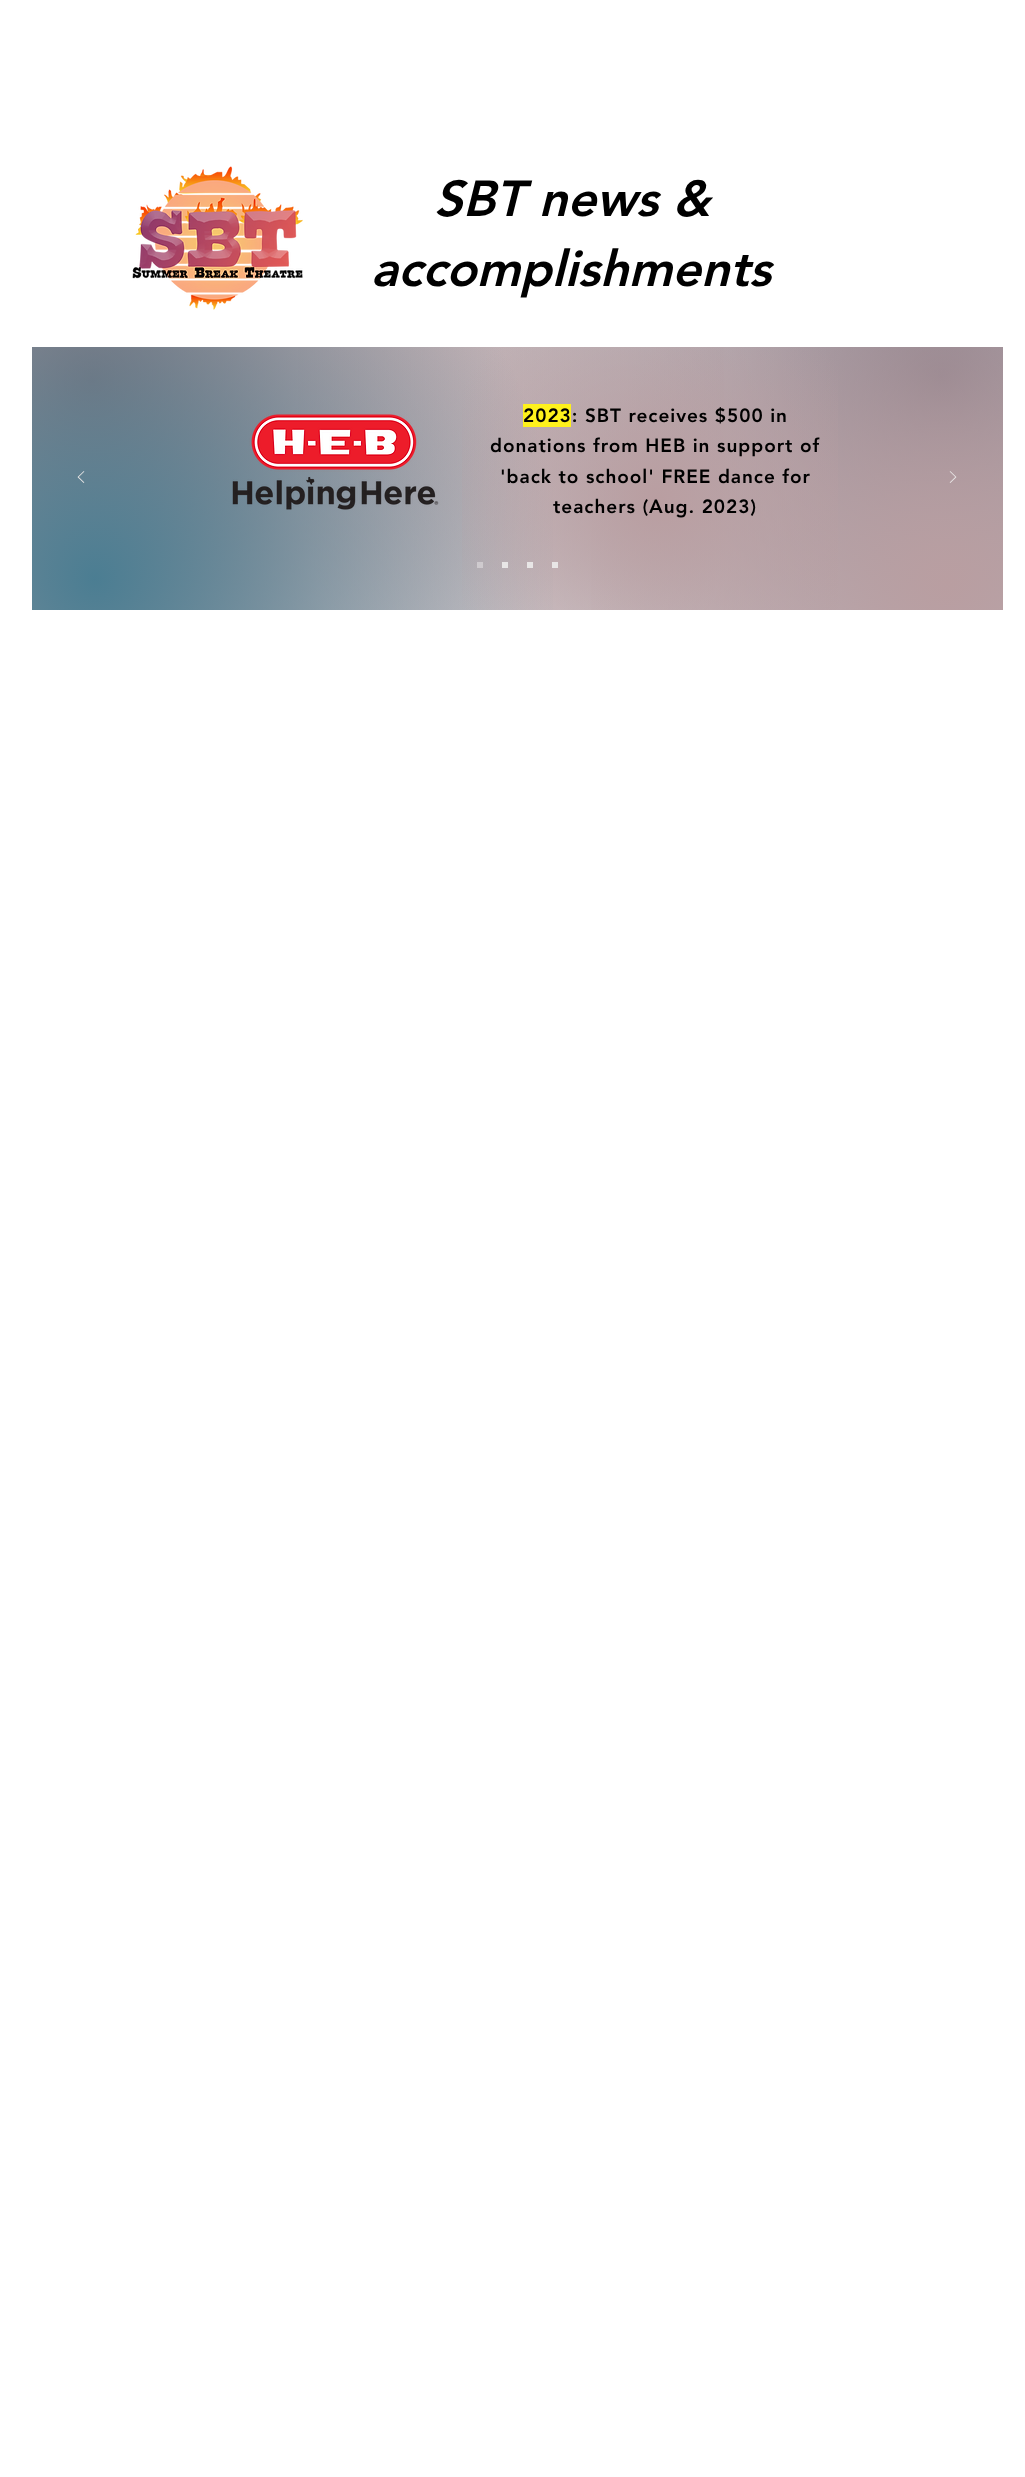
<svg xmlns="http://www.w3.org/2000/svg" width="1025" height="2477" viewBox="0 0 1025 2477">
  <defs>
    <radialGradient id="g1" gradientUnits="userSpaceOnUse" cx="942" cy="377" r="939"><stop offset="0" stop-color="rgb(137,126,137)"/><stop offset="0.7" stop-color="rgb(255,255,255)"/></radialGradient>
    <radialGradient id="g2" gradientUnits="userSpaceOnUse" cx="92" cy="380" r="940"><stop offset="0" stop-color="rgb(150,117,121)"/><stop offset="0.7" stop-color="rgb(150,117,121)" stop-opacity="0"/></radialGradient>
    <radialGradient id="g3" gradientUnits="userSpaceOnUse" cx="95" cy="579" r="937"><stop offset="0" stop-color="rgb(74,125,146)" stop-opacity="0.99"/><stop offset="0.5" stop-color="rgb(74,125,146)" stop-opacity="0"/></radialGradient>
    <radialGradient id="g4" gradientUnits="userSpaceOnUse" cx="948" cy="583" r="946"><stop offset="0" stop-color="rgb(185,158,161)"/><stop offset="0.4" stop-color="rgb(185,158,161)" stop-opacity="0"/></radialGradient>
    <radialGradient id="g5" gradientUnits="userSpaceOnUse" cx="658" cy="499" r="645"><stop offset="0" stop-color="rgb(185,158,161)"/><stop offset="0.35" stop-color="rgb(185,158,161)" stop-opacity="0"/></radialGradient>
  </defs>
  <rect width="100%" height="100%" fill="rgb(255,255,255)"/>
  <image x="132" y="166" width="171" height="144" href="pic1.png"/>
  <g font-family="'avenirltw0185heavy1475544'" font-size="50" font-weight="900" font-style="italic" fill="rgb(0,0,0)">
    <text x="434" y="216">SBT news &amp;</text>
    <text x="371" y="286">accomplishments</text>
  </g>
  <rect x="298" y="347" width="705" height="263" fill="url(#g1)"/>
  <rect x="32" y="347" width="692" height="263" fill="url(#g2)"/>
  <rect x="32" y="347" width="521" height="263" fill="url(#g3)"/>
  <image x="77" y="471" width="8" height="12" href="pic2.png"/>
  <rect x="591" y="347" width="412" height="263" fill="url(#g4)"/>
  <rect x="462" y="347" width="376" height="263" fill="url(#g5)"/>
  <image x="232" y="414" width="207" height="96" href="pic3.png"/>
  <rect x="523" y="404" width="48" height="23" fill="rgb(254,241,28)"/>
  <g font-family="'avenirltw0185heavy1475544'" font-size="19" font-weight="900" letter-spacing="0.95" fill="rgb(0,0,0)">
    <text x="523" y="422">2023: SBT receives $500 in</text>
    <text x="490" y="452">donations from HEB in support of</text>
    <text x="500" y="483">'back to school' FREE dance for</text>
    <text x="553" y="513">teachers (Aug. 2023)</text>
  </g>
  <image x="949" y="471" width="8" height="12" href="pic4.png"/>
  <rect x="477" y="562" width="6" height="6" fill="rgba(255,255,255,0.36)"/>
  <rect x="502" y="562" width="6" height="6" fill="rgb(232,230,230)"/>
  <rect x="527" y="562" width="6" height="6" fill="rgb(232,230,230)"/>
  <rect x="552" y="562" width="6" height="6" fill="rgb(232,230,230)"/>
</svg>
